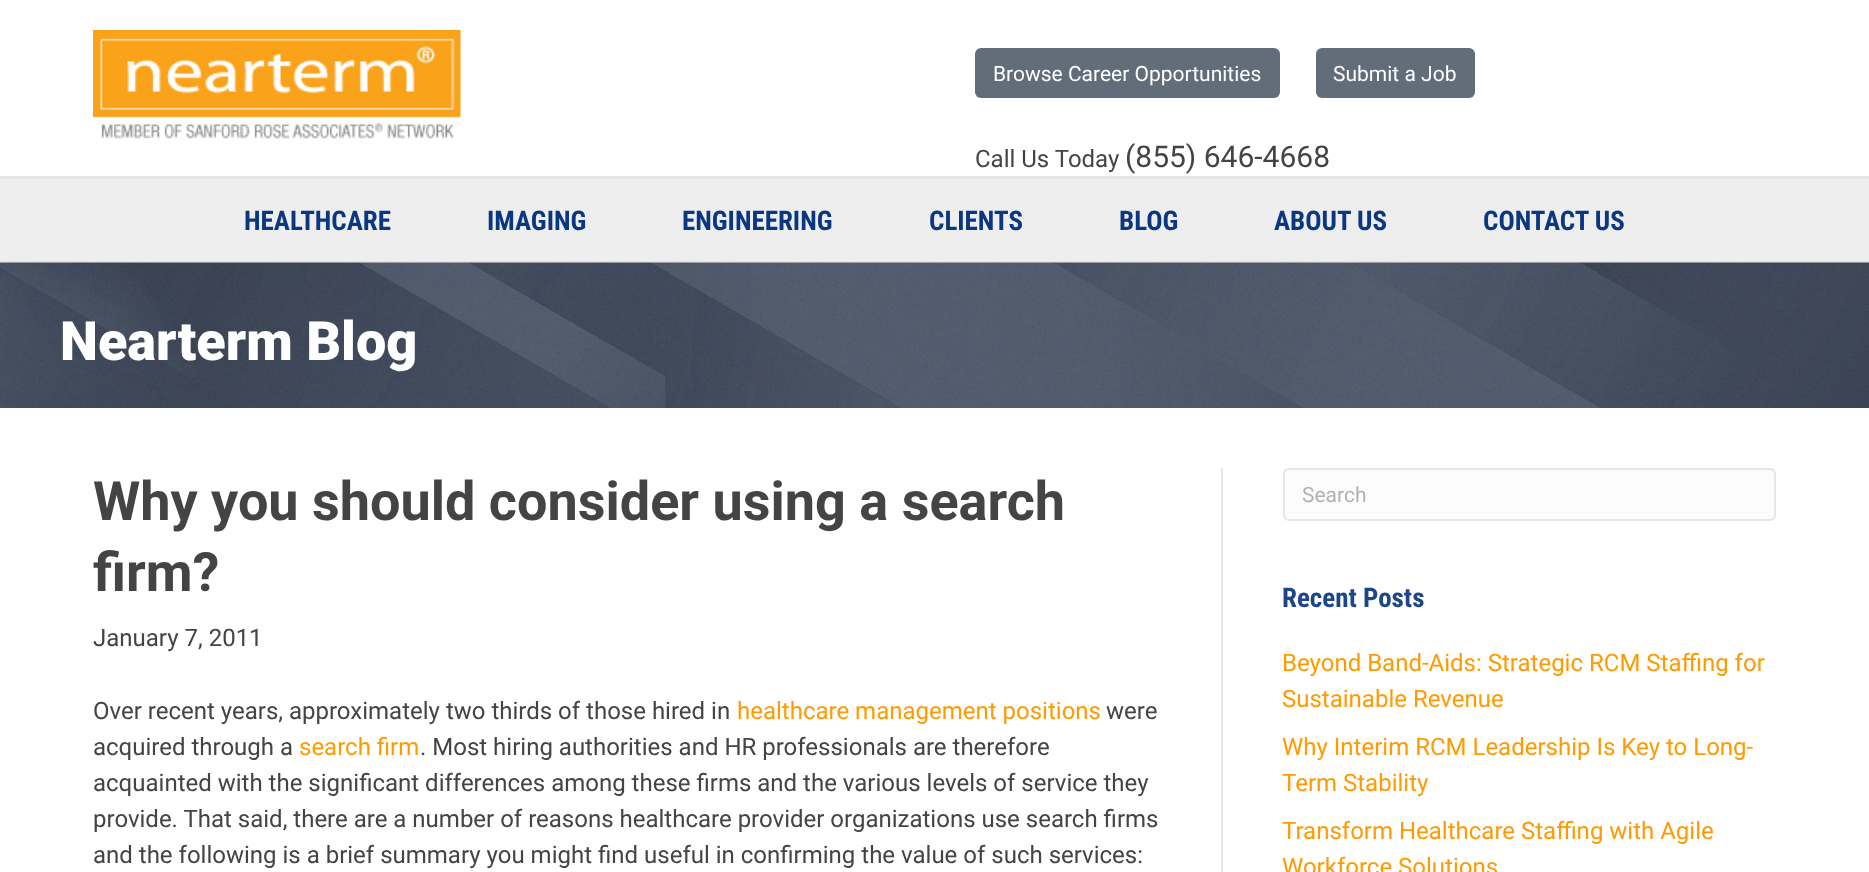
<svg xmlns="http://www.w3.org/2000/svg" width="1869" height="872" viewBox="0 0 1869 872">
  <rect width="100%" height="100%" fill="rgb(255,255,255)"/>
  <rect x="0" y="176" width="1869" height="3" fill="rgb(230,230,230)"/>
  <image x="93" y="30" width="368" height="109" href="pic1.png"/>
  <rect x="975" y="48" width="305" height="50" rx="6" fill="rgb(97,109,121)"/>
  <text x="993" y="81" font-family="Roboto" font-size="21" fill="rgb(255,255,255)">Browse Career Opportunities</text>
  <rect x="1316" y="48" width="159" height="50" rx="6" fill="rgb(97,109,121)"/>
  <text x="1333" y="81" font-family="Roboto" font-size="21" fill="rgb(255,255,255)">Submit a Job</text>
  <text x="975" y="167" font-family="Roboto" font-size="24" fill="rgb(68,68,68)">Call Us Today</text>
  <text x="1125" y="167" font-family="Roboto" font-size="30" fill="rgb(68,68,68)">(855) 646-4668</text>
  <rect x="0" y="179" width="1869" height="82" fill="rgb(238,238,238)"/>
  <rect x="0" y="261" width="1869" height="2" fill="rgb(230,230,230)"/>
  <g font-family="Roboto Condensed" font-size="27" font-weight="bold" fill="rgb(11,55,129)">
    <text x="244" y="230">HEALTHCARE</text>
    <text x="487" y="230">IMAGING</text>
    <text x="682" y="230">ENGINEERING</text>
    <text x="929" y="230">CLIENTS</text>
    <text x="1119" y="230">BLOG</text>
    <text x="1274" y="230">ABOUT US</text>
    <text x="1483" y="230">CONTACT US</text>
  </g>
  <image x="0" y="262" width="1869" height="146" href="pic2.png"/>
  <text x="60" y="360" font-family="Roboto" font-size="54" font-weight="900" fill="rgb(255,255,255)">Nearterm Blog</text>
  <rect x="1221" y="468" width="2" height="404" fill="rgb(230,230,230)"/>
  <g font-family="Roboto" font-size="54" font-weight="bold" fill="rgb(68,68,68)">
    <text>
      <tspan x="93" y="520">Why you should consider using a search</tspan>
      <tspan x="93" y="591">firm?</tspan>
    </text>
  </g>
  <g font-family="Roboto" font-size="24" fill="rgb(68,68,68)">
    <text x="93" y="646">January 7, 2011</text>
    <text x="93" y="719">Over recent years, approximately two thirds of those hired in</text>
  </g>
  <text x="737" y="719" font-family="Roboto" font-size="24" fill="rgb(255,154,0)">healthcare management positions</text>
  <g font-family="Roboto" font-size="24" fill="rgb(68,68,68)">
    <text x="1106" y="719">were</text>
    <text x="93" y="755">acquired through a</text>
  </g>
  <text x="299" y="755" font-family="Roboto" font-size="24" fill="rgb(255,154,0)">search firm</text>
  <g font-family="Roboto" font-size="24" fill="rgb(68,68,68)">
    <text x="420" y="755">. Most hiring authorities and HR professionals are therefore</text>
    <text>
      <tspan x="93" y="791">acquainted with the significant differences among these firms and the various levels of service they</tspan>
      <tspan x="93" y="827">provide. That said, there are a number of reasons healthcare provider organizations use search firms</tspan>
      <tspan x="93" y="863">and the following is a brief summary you might find useful in confirming the value of such services:</tspan>
    </text>
  </g>
  <rect x="1284" y="469" width="491" height="51" rx="5" fill="rgb(252,252,252)" stroke="rgb(230,230,230)" stroke-width="2"/>
  <text x="1302" y="502" font-family="Roboto" font-size="21" fill="rgb(178,178,178)">Search</text>
  <text x="1282" y="607" font-family="Roboto Condensed" font-size="27" font-weight="bold" fill="rgb(29,69,138)">Recent Posts</text>
  <g font-family="Roboto" font-size="24" fill="rgb(255,154,0)">
    <text>
      <tspan x="1282" y="671">Beyond Band-Aids: Strategic RCM Staffing for</tspan>
      <tspan x="1282" y="707">Sustainable Revenue</tspan>
    </text>
    <text>
      <tspan x="1282" y="755">Why Interim RCM Leadership Is Key to Long-</tspan>
      <tspan x="1282" y="791">Term Stability</tspan>
    </text>
    <text>
      <tspan x="1282" y="839">Transform Healthcare Staffing with Agile</tspan>
      <tspan x="1282" y="875">Workforce Solutions</tspan>
    </text>
  </g>
</svg>
